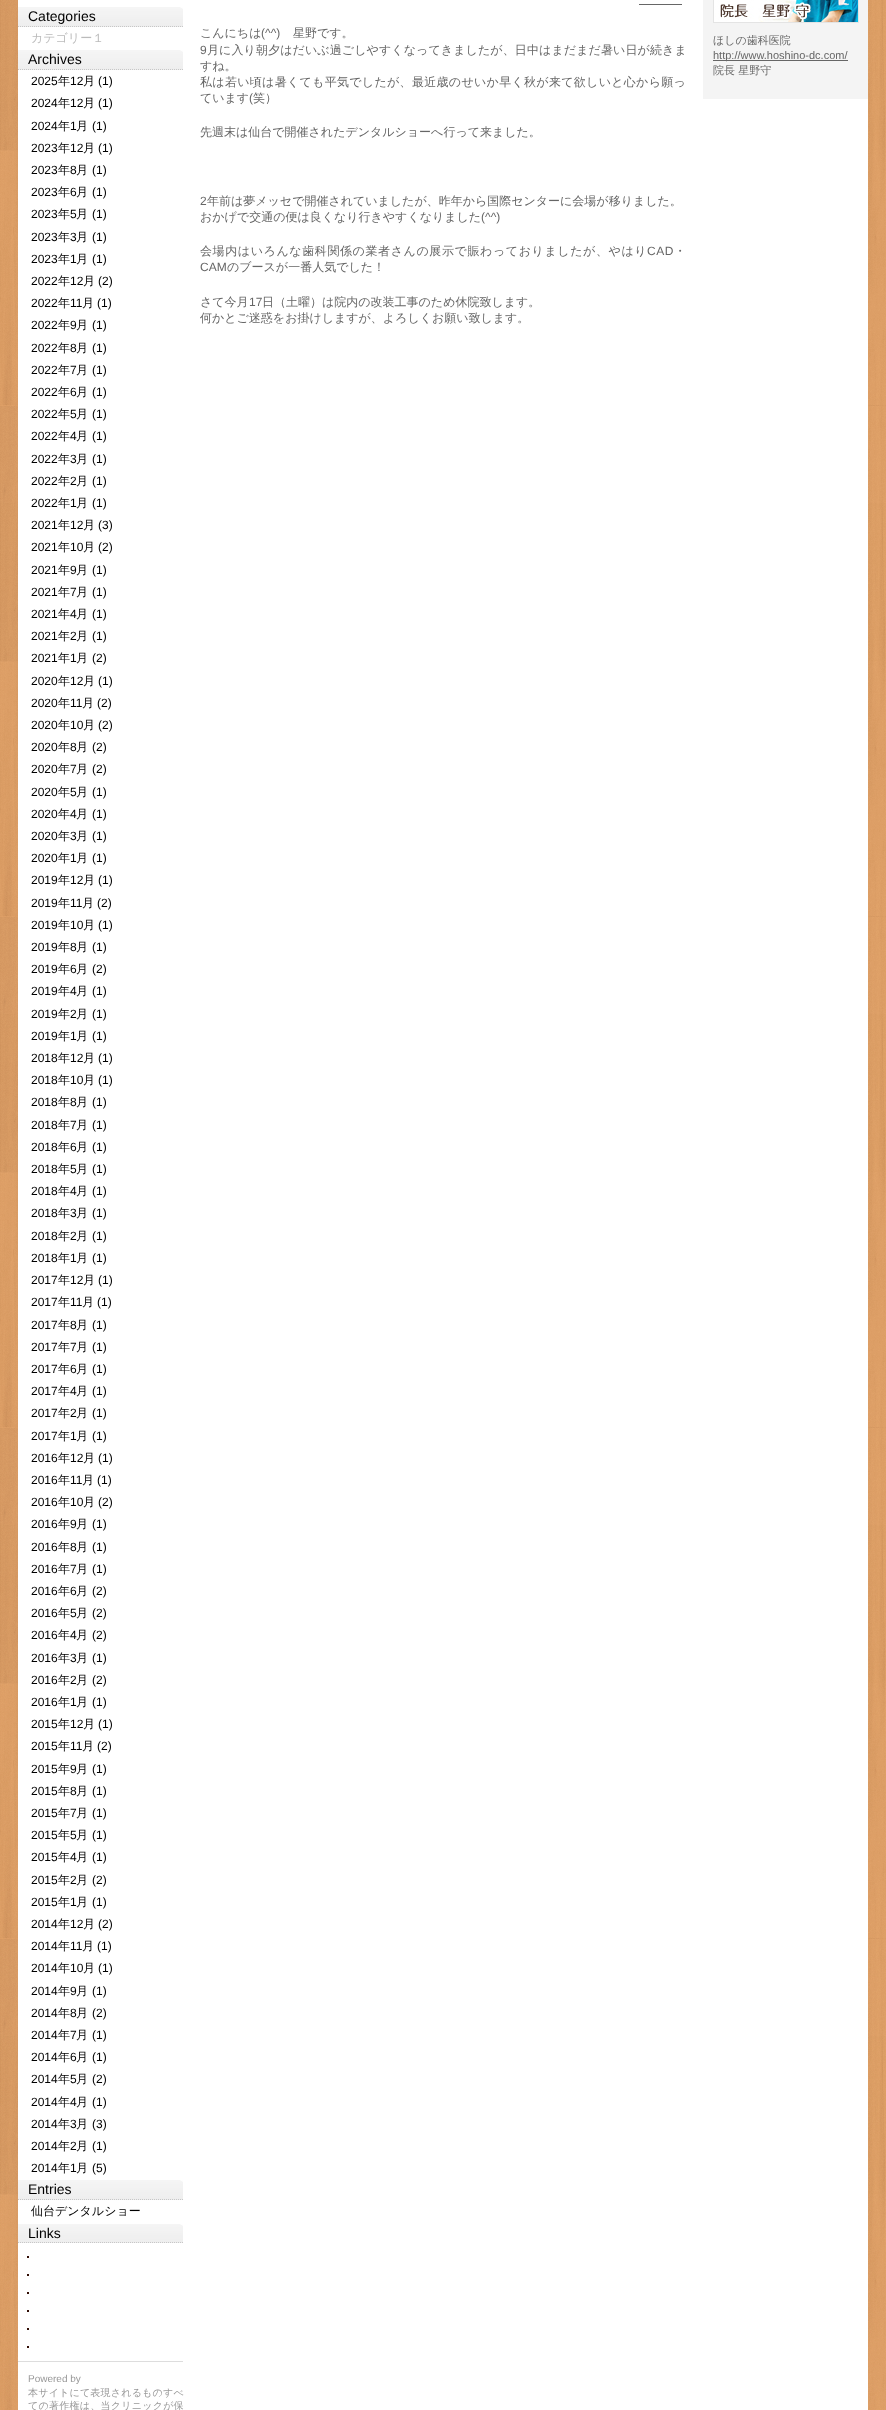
<svg xmlns="http://www.w3.org/2000/svg" width="886" height="2410" viewBox="0 0 886 2410">
  <rect width="100%" height="100%" fill="rgb(255,255,255)"/>
  <image x="0" y="0" width="886" height="2410" href="pic1.png"/>
  <rect x="18" y="0" width="850" height="2410" fill="rgb(255,255,255)"/>
  <image x="18" y="7" width="165" height="20" href="pic2.png"/>
  <path d="M18 26.5H183" fill="none" stroke="rgb(199,199,199)" stroke-dasharray="1 1"/>
  <text x="28" y="21" font-family="Liberation Sans" font-size="14" fill="rgb(0,0,0)">Categories</text>
  <text x="31" y="42" font-family="WenQuanYi Zen Hei" font-size="12" font-weight="500" fill="rgb(187,187,187)">カテゴリー１</text>
  <image x="18" y="50" width="165" height="20" href="pic2.png"/>
  <path d="M18 69.5H183" fill="none" stroke="rgb(199,199,199)" stroke-dasharray="1 1"/>
  <text x="28" y="64" font-family="Liberation Sans" font-size="14" fill="rgb(0,0,0)">Archives</text>
  <text x="31" y="85" font-family="Liberation Sans" font-size="12" fill="rgb(0,0,0)">2025</text>
  <text x="58" y="85" font-family="WenQuanYi Zen Hei" font-size="12" font-weight="500" fill="rgb(0,0,0)">年</text>
  <text x="70" y="85" font-family="Liberation Sans" font-size="12" fill="rgb(0,0,0)">12</text>
  <text x="83" y="85" font-family="WenQuanYi Zen Hei" font-size="12" font-weight="500" fill="rgb(0,0,0)">月</text>
  <g font-family="Liberation Sans" font-size="12" fill="rgb(0,0,0)">
    <text x="98" y="85">(1)</text>
    <text x="31" y="107">2024</text>
  </g>
  <text x="58" y="107" font-family="WenQuanYi Zen Hei" font-size="12" font-weight="500" fill="rgb(0,0,0)">年</text>
  <text x="70" y="107" font-family="Liberation Sans" font-size="12" fill="rgb(0,0,0)">12</text>
  <text x="83" y="107" font-family="WenQuanYi Zen Hei" font-size="12" font-weight="500" fill="rgb(0,0,0)">月</text>
  <g font-family="Liberation Sans" font-size="12" fill="rgb(0,0,0)">
    <text x="98" y="107">(1)</text>
    <text x="31" y="130">2024</text>
  </g>
  <text x="58" y="130" font-family="WenQuanYi Zen Hei" font-size="12" font-weight="500" fill="rgb(0,0,0)">年</text>
  <text x="70" y="130" font-family="Liberation Sans" font-size="12" fill="rgb(0,0,0)">1</text>
  <text x="76" y="130" font-family="WenQuanYi Zen Hei" font-size="12" font-weight="500" fill="rgb(0,0,0)">月</text>
  <g font-family="Liberation Sans" font-size="12" fill="rgb(0,0,0)">
    <text x="92" y="130">(1)</text>
    <text x="31" y="152">2023</text>
  </g>
  <text x="58" y="152" font-family="WenQuanYi Zen Hei" font-size="12" font-weight="500" fill="rgb(0,0,0)">年</text>
  <text x="70" y="152" font-family="Liberation Sans" font-size="12" fill="rgb(0,0,0)">12</text>
  <text x="83" y="152" font-family="WenQuanYi Zen Hei" font-size="12" font-weight="500" fill="rgb(0,0,0)">月</text>
  <g font-family="Liberation Sans" font-size="12" fill="rgb(0,0,0)">
    <text x="98" y="152">(1)</text>
    <text x="31" y="174">2023</text>
  </g>
  <text x="58" y="174" font-family="WenQuanYi Zen Hei" font-size="12" font-weight="500" fill="rgb(0,0,0)">年</text>
  <text x="70" y="174" font-family="Liberation Sans" font-size="12" fill="rgb(0,0,0)">8</text>
  <text x="76" y="174" font-family="WenQuanYi Zen Hei" font-size="12" font-weight="500" fill="rgb(0,0,0)">月</text>
  <g font-family="Liberation Sans" font-size="12" fill="rgb(0,0,0)">
    <text x="92" y="174">(1)</text>
    <text x="31" y="196">2023</text>
  </g>
  <text x="58" y="196" font-family="WenQuanYi Zen Hei" font-size="12" font-weight="500" fill="rgb(0,0,0)">年</text>
  <text x="70" y="196" font-family="Liberation Sans" font-size="12" fill="rgb(0,0,0)">6</text>
  <text x="76" y="196" font-family="WenQuanYi Zen Hei" font-size="12" font-weight="500" fill="rgb(0,0,0)">月</text>
  <g font-family="Liberation Sans" font-size="12" fill="rgb(0,0,0)">
    <text x="92" y="196">(1)</text>
    <text x="31" y="218">2023</text>
  </g>
  <text x="58" y="218" font-family="WenQuanYi Zen Hei" font-size="12" font-weight="500" fill="rgb(0,0,0)">年</text>
  <text x="70" y="218" font-family="Liberation Sans" font-size="12" fill="rgb(0,0,0)">5</text>
  <text x="76" y="218" font-family="WenQuanYi Zen Hei" font-size="12" font-weight="500" fill="rgb(0,0,0)">月</text>
  <g font-family="Liberation Sans" font-size="12" fill="rgb(0,0,0)">
    <text x="92" y="218">(1)</text>
    <text x="31" y="241">2023</text>
  </g>
  <text x="58" y="241" font-family="WenQuanYi Zen Hei" font-size="12" font-weight="500" fill="rgb(0,0,0)">年</text>
  <text x="70" y="241" font-family="Liberation Sans" font-size="12" fill="rgb(0,0,0)">3</text>
  <text x="76" y="241" font-family="WenQuanYi Zen Hei" font-size="12" font-weight="500" fill="rgb(0,0,0)">月</text>
  <g font-family="Liberation Sans" font-size="12" fill="rgb(0,0,0)">
    <text x="92" y="241">(1)</text>
    <text x="31" y="263">2023</text>
  </g>
  <text x="58" y="263" font-family="WenQuanYi Zen Hei" font-size="12" font-weight="500" fill="rgb(0,0,0)">年</text>
  <text x="70" y="263" font-family="Liberation Sans" font-size="12" fill="rgb(0,0,0)">1</text>
  <text x="76" y="263" font-family="WenQuanYi Zen Hei" font-size="12" font-weight="500" fill="rgb(0,0,0)">月</text>
  <g font-family="Liberation Sans" font-size="12" fill="rgb(0,0,0)">
    <text x="92" y="263">(1)</text>
    <text x="31" y="285">2022</text>
  </g>
  <text x="58" y="285" font-family="WenQuanYi Zen Hei" font-size="12" font-weight="500" fill="rgb(0,0,0)">年</text>
  <text x="70" y="285" font-family="Liberation Sans" font-size="12" fill="rgb(0,0,0)">12</text>
  <text x="83" y="285" font-family="WenQuanYi Zen Hei" font-size="12" font-weight="500" fill="rgb(0,0,0)">月</text>
  <g font-family="Liberation Sans" font-size="12" fill="rgb(0,0,0)">
    <text x="98" y="285">(2)</text>
    <text x="31" y="307">2022</text>
  </g>
  <text x="58" y="307" font-family="WenQuanYi Zen Hei" font-size="12" font-weight="500" fill="rgb(0,0,0)">年</text>
  <text x="70" y="307" font-family="Liberation Sans" font-size="12" fill="rgb(0,0,0)">11</text>
  <text x="82" y="307" font-family="WenQuanYi Zen Hei" font-size="12" font-weight="500" fill="rgb(0,0,0)">月</text>
  <g font-family="Liberation Sans" font-size="12" fill="rgb(0,0,0)">
    <text x="97" y="307">(1)</text>
    <text x="31" y="329">2022</text>
  </g>
  <text x="58" y="329" font-family="WenQuanYi Zen Hei" font-size="12" font-weight="500" fill="rgb(0,0,0)">年</text>
  <text x="70" y="329" font-family="Liberation Sans" font-size="12" fill="rgb(0,0,0)">9</text>
  <text x="76" y="329" font-family="WenQuanYi Zen Hei" font-size="12" font-weight="500" fill="rgb(0,0,0)">月</text>
  <g font-family="Liberation Sans" font-size="12" fill="rgb(0,0,0)">
    <text x="92" y="329">(1)</text>
    <text x="31" y="352">2022</text>
  </g>
  <text x="58" y="352" font-family="WenQuanYi Zen Hei" font-size="12" font-weight="500" fill="rgb(0,0,0)">年</text>
  <text x="70" y="352" font-family="Liberation Sans" font-size="12" fill="rgb(0,0,0)">8</text>
  <text x="76" y="352" font-family="WenQuanYi Zen Hei" font-size="12" font-weight="500" fill="rgb(0,0,0)">月</text>
  <g font-family="Liberation Sans" font-size="12" fill="rgb(0,0,0)">
    <text x="92" y="352">(1)</text>
    <text x="31" y="374">2022</text>
  </g>
  <text x="58" y="374" font-family="WenQuanYi Zen Hei" font-size="12" font-weight="500" fill="rgb(0,0,0)">年</text>
  <text x="70" y="374" font-family="Liberation Sans" font-size="12" fill="rgb(0,0,0)">7</text>
  <text x="76" y="374" font-family="WenQuanYi Zen Hei" font-size="12" font-weight="500" fill="rgb(0,0,0)">月</text>
  <g font-family="Liberation Sans" font-size="12" fill="rgb(0,0,0)">
    <text x="92" y="374">(1)</text>
    <text x="31" y="396">2022</text>
  </g>
  <text x="58" y="396" font-family="WenQuanYi Zen Hei" font-size="12" font-weight="500" fill="rgb(0,0,0)">年</text>
  <text x="70" y="396" font-family="Liberation Sans" font-size="12" fill="rgb(0,0,0)">6</text>
  <text x="76" y="396" font-family="WenQuanYi Zen Hei" font-size="12" font-weight="500" fill="rgb(0,0,0)">月</text>
  <g font-family="Liberation Sans" font-size="12" fill="rgb(0,0,0)">
    <text x="92" y="396">(1)</text>
    <text x="31" y="418">2022</text>
  </g>
  <text x="58" y="418" font-family="WenQuanYi Zen Hei" font-size="12" font-weight="500" fill="rgb(0,0,0)">年</text>
  <text x="70" y="418" font-family="Liberation Sans" font-size="12" fill="rgb(0,0,0)">5</text>
  <text x="76" y="418" font-family="WenQuanYi Zen Hei" font-size="12" font-weight="500" fill="rgb(0,0,0)">月</text>
  <g font-family="Liberation Sans" font-size="12" fill="rgb(0,0,0)">
    <text x="92" y="418">(1)</text>
    <text x="31" y="440">2022</text>
  </g>
  <text x="58" y="440" font-family="WenQuanYi Zen Hei" font-size="12" font-weight="500" fill="rgb(0,0,0)">年</text>
  <text x="70" y="440" font-family="Liberation Sans" font-size="12" fill="rgb(0,0,0)">4</text>
  <text x="76" y="440" font-family="WenQuanYi Zen Hei" font-size="12" font-weight="500" fill="rgb(0,0,0)">月</text>
  <g font-family="Liberation Sans" font-size="12" fill="rgb(0,0,0)">
    <text x="92" y="440">(1)</text>
    <text x="31" y="463">2022</text>
  </g>
  <text x="58" y="463" font-family="WenQuanYi Zen Hei" font-size="12" font-weight="500" fill="rgb(0,0,0)">年</text>
  <text x="70" y="463" font-family="Liberation Sans" font-size="12" fill="rgb(0,0,0)">3</text>
  <text x="76" y="463" font-family="WenQuanYi Zen Hei" font-size="12" font-weight="500" fill="rgb(0,0,0)">月</text>
  <g font-family="Liberation Sans" font-size="12" fill="rgb(0,0,0)">
    <text x="92" y="463">(1)</text>
    <text x="31" y="485">2022</text>
  </g>
  <text x="58" y="485" font-family="WenQuanYi Zen Hei" font-size="12" font-weight="500" fill="rgb(0,0,0)">年</text>
  <text x="70" y="485" font-family="Liberation Sans" font-size="12" fill="rgb(0,0,0)">2</text>
  <text x="76" y="485" font-family="WenQuanYi Zen Hei" font-size="12" font-weight="500" fill="rgb(0,0,0)">月</text>
  <g font-family="Liberation Sans" font-size="12" fill="rgb(0,0,0)">
    <text x="92" y="485">(1)</text>
    <text x="31" y="507">2022</text>
  </g>
  <text x="58" y="507" font-family="WenQuanYi Zen Hei" font-size="12" font-weight="500" fill="rgb(0,0,0)">年</text>
  <text x="70" y="507" font-family="Liberation Sans" font-size="12" fill="rgb(0,0,0)">1</text>
  <text x="76" y="507" font-family="WenQuanYi Zen Hei" font-size="12" font-weight="500" fill="rgb(0,0,0)">月</text>
  <g font-family="Liberation Sans" font-size="12" fill="rgb(0,0,0)">
    <text x="92" y="507">(1)</text>
    <text x="31" y="529">2021</text>
  </g>
  <text x="58" y="529" font-family="WenQuanYi Zen Hei" font-size="12" font-weight="500" fill="rgb(0,0,0)">年</text>
  <text x="70" y="529" font-family="Liberation Sans" font-size="12" fill="rgb(0,0,0)">12</text>
  <text x="83" y="529" font-family="WenQuanYi Zen Hei" font-size="12" font-weight="500" fill="rgb(0,0,0)">月</text>
  <g font-family="Liberation Sans" font-size="12" fill="rgb(0,0,0)">
    <text x="98" y="529">(3)</text>
    <text x="31" y="551">2021</text>
  </g>
  <text x="58" y="551" font-family="WenQuanYi Zen Hei" font-size="12" font-weight="500" fill="rgb(0,0,0)">年</text>
  <text x="70" y="551" font-family="Liberation Sans" font-size="12" fill="rgb(0,0,0)">10</text>
  <text x="83" y="551" font-family="WenQuanYi Zen Hei" font-size="12" font-weight="500" fill="rgb(0,0,0)">月</text>
  <g font-family="Liberation Sans" font-size="12" fill="rgb(0,0,0)">
    <text x="98" y="551">(2)</text>
    <text x="31" y="574">2021</text>
  </g>
  <text x="58" y="574" font-family="WenQuanYi Zen Hei" font-size="12" font-weight="500" fill="rgb(0,0,0)">年</text>
  <text x="70" y="574" font-family="Liberation Sans" font-size="12" fill="rgb(0,0,0)">9</text>
  <text x="76" y="574" font-family="WenQuanYi Zen Hei" font-size="12" font-weight="500" fill="rgb(0,0,0)">月</text>
  <g font-family="Liberation Sans" font-size="12" fill="rgb(0,0,0)">
    <text x="92" y="574">(1)</text>
    <text x="31" y="596">2021</text>
  </g>
  <text x="58" y="596" font-family="WenQuanYi Zen Hei" font-size="12" font-weight="500" fill="rgb(0,0,0)">年</text>
  <text x="70" y="596" font-family="Liberation Sans" font-size="12" fill="rgb(0,0,0)">7</text>
  <text x="76" y="596" font-family="WenQuanYi Zen Hei" font-size="12" font-weight="500" fill="rgb(0,0,0)">月</text>
  <g font-family="Liberation Sans" font-size="12" fill="rgb(0,0,0)">
    <text x="92" y="596">(1)</text>
    <text x="31" y="618">2021</text>
  </g>
  <text x="58" y="618" font-family="WenQuanYi Zen Hei" font-size="12" font-weight="500" fill="rgb(0,0,0)">年</text>
  <text x="70" y="618" font-family="Liberation Sans" font-size="12" fill="rgb(0,0,0)">4</text>
  <text x="76" y="618" font-family="WenQuanYi Zen Hei" font-size="12" font-weight="500" fill="rgb(0,0,0)">月</text>
  <g font-family="Liberation Sans" font-size="12" fill="rgb(0,0,0)">
    <text x="92" y="618">(1)</text>
    <text x="31" y="640">2021</text>
  </g>
  <text x="58" y="640" font-family="WenQuanYi Zen Hei" font-size="12" font-weight="500" fill="rgb(0,0,0)">年</text>
  <text x="70" y="640" font-family="Liberation Sans" font-size="12" fill="rgb(0,0,0)">2</text>
  <text x="76" y="640" font-family="WenQuanYi Zen Hei" font-size="12" font-weight="500" fill="rgb(0,0,0)">月</text>
  <g font-family="Liberation Sans" font-size="12" fill="rgb(0,0,0)">
    <text x="92" y="640">(1)</text>
    <text x="31" y="662">2021</text>
  </g>
  <text x="58" y="662" font-family="WenQuanYi Zen Hei" font-size="12" font-weight="500" fill="rgb(0,0,0)">年</text>
  <text x="70" y="662" font-family="Liberation Sans" font-size="12" fill="rgb(0,0,0)">1</text>
  <text x="76" y="662" font-family="WenQuanYi Zen Hei" font-size="12" font-weight="500" fill="rgb(0,0,0)">月</text>
  <g font-family="Liberation Sans" font-size="12" fill="rgb(0,0,0)">
    <text x="92" y="662">(2)</text>
    <text x="31" y="685">2020</text>
  </g>
  <text x="58" y="685" font-family="WenQuanYi Zen Hei" font-size="12" font-weight="500" fill="rgb(0,0,0)">年</text>
  <text x="70" y="685" font-family="Liberation Sans" font-size="12" fill="rgb(0,0,0)">12</text>
  <text x="83" y="685" font-family="WenQuanYi Zen Hei" font-size="12" font-weight="500" fill="rgb(0,0,0)">月</text>
  <g font-family="Liberation Sans" font-size="12" fill="rgb(0,0,0)">
    <text x="98" y="685">(1)</text>
    <text x="31" y="707">2020</text>
  </g>
  <text x="58" y="707" font-family="WenQuanYi Zen Hei" font-size="12" font-weight="500" fill="rgb(0,0,0)">年</text>
  <text x="70" y="707" font-family="Liberation Sans" font-size="12" fill="rgb(0,0,0)">11</text>
  <text x="82" y="707" font-family="WenQuanYi Zen Hei" font-size="12" font-weight="500" fill="rgb(0,0,0)">月</text>
  <g font-family="Liberation Sans" font-size="12" fill="rgb(0,0,0)">
    <text x="97" y="707">(2)</text>
    <text x="31" y="729">2020</text>
  </g>
  <text x="58" y="729" font-family="WenQuanYi Zen Hei" font-size="12" font-weight="500" fill="rgb(0,0,0)">年</text>
  <text x="70" y="729" font-family="Liberation Sans" font-size="12" fill="rgb(0,0,0)">10</text>
  <text x="83" y="729" font-family="WenQuanYi Zen Hei" font-size="12" font-weight="500" fill="rgb(0,0,0)">月</text>
  <g font-family="Liberation Sans" font-size="12" fill="rgb(0,0,0)">
    <text x="98" y="729">(2)</text>
    <text x="31" y="751">2020</text>
  </g>
  <text x="58" y="751" font-family="WenQuanYi Zen Hei" font-size="12" font-weight="500" fill="rgb(0,0,0)">年</text>
  <text x="70" y="751" font-family="Liberation Sans" font-size="12" fill="rgb(0,0,0)">8</text>
  <text x="76" y="751" font-family="WenQuanYi Zen Hei" font-size="12" font-weight="500" fill="rgb(0,0,0)">月</text>
  <g font-family="Liberation Sans" font-size="12" fill="rgb(0,0,0)">
    <text x="92" y="751">(2)</text>
    <text x="31" y="773">2020</text>
  </g>
  <text x="58" y="773" font-family="WenQuanYi Zen Hei" font-size="12" font-weight="500" fill="rgb(0,0,0)">年</text>
  <text x="70" y="773" font-family="Liberation Sans" font-size="12" fill="rgb(0,0,0)">7</text>
  <text x="76" y="773" font-family="WenQuanYi Zen Hei" font-size="12" font-weight="500" fill="rgb(0,0,0)">月</text>
  <g font-family="Liberation Sans" font-size="12" fill="rgb(0,0,0)">
    <text x="92" y="773">(2)</text>
    <text x="31" y="796">2020</text>
  </g>
  <text x="58" y="796" font-family="WenQuanYi Zen Hei" font-size="12" font-weight="500" fill="rgb(0,0,0)">年</text>
  <text x="70" y="796" font-family="Liberation Sans" font-size="12" fill="rgb(0,0,0)">5</text>
  <text x="76" y="796" font-family="WenQuanYi Zen Hei" font-size="12" font-weight="500" fill="rgb(0,0,0)">月</text>
  <g font-family="Liberation Sans" font-size="12" fill="rgb(0,0,0)">
    <text x="92" y="796">(1)</text>
    <text x="31" y="818">2020</text>
  </g>
  <text x="58" y="818" font-family="WenQuanYi Zen Hei" font-size="12" font-weight="500" fill="rgb(0,0,0)">年</text>
  <text x="70" y="818" font-family="Liberation Sans" font-size="12" fill="rgb(0,0,0)">4</text>
  <text x="76" y="818" font-family="WenQuanYi Zen Hei" font-size="12" font-weight="500" fill="rgb(0,0,0)">月</text>
  <g font-family="Liberation Sans" font-size="12" fill="rgb(0,0,0)">
    <text x="92" y="818">(1)</text>
    <text x="31" y="840">2020</text>
  </g>
  <text x="58" y="840" font-family="WenQuanYi Zen Hei" font-size="12" font-weight="500" fill="rgb(0,0,0)">年</text>
  <text x="70" y="840" font-family="Liberation Sans" font-size="12" fill="rgb(0,0,0)">3</text>
  <text x="76" y="840" font-family="WenQuanYi Zen Hei" font-size="12" font-weight="500" fill="rgb(0,0,0)">月</text>
  <g font-family="Liberation Sans" font-size="12" fill="rgb(0,0,0)">
    <text x="92" y="840">(1)</text>
    <text x="31" y="862">2020</text>
  </g>
  <text x="58" y="862" font-family="WenQuanYi Zen Hei" font-size="12" font-weight="500" fill="rgb(0,0,0)">年</text>
  <text x="70" y="862" font-family="Liberation Sans" font-size="12" fill="rgb(0,0,0)">1</text>
  <text x="76" y="862" font-family="WenQuanYi Zen Hei" font-size="12" font-weight="500" fill="rgb(0,0,0)">月</text>
  <g font-family="Liberation Sans" font-size="12" fill="rgb(0,0,0)">
    <text x="92" y="862">(1)</text>
    <text x="31" y="884">2019</text>
  </g>
  <text x="58" y="884" font-family="WenQuanYi Zen Hei" font-size="12" font-weight="500" fill="rgb(0,0,0)">年</text>
  <text x="70" y="884" font-family="Liberation Sans" font-size="12" fill="rgb(0,0,0)">12</text>
  <text x="83" y="884" font-family="WenQuanYi Zen Hei" font-size="12" font-weight="500" fill="rgb(0,0,0)">月</text>
  <g font-family="Liberation Sans" font-size="12" fill="rgb(0,0,0)">
    <text x="98" y="884">(1)</text>
    <text x="31" y="907">2019</text>
  </g>
  <text x="58" y="907" font-family="WenQuanYi Zen Hei" font-size="12" font-weight="500" fill="rgb(0,0,0)">年</text>
  <text x="70" y="907" font-family="Liberation Sans" font-size="12" fill="rgb(0,0,0)">11</text>
  <text x="82" y="907" font-family="WenQuanYi Zen Hei" font-size="12" font-weight="500" fill="rgb(0,0,0)">月</text>
  <g font-family="Liberation Sans" font-size="12" fill="rgb(0,0,0)">
    <text x="97" y="907">(2)</text>
    <text x="31" y="929">2019</text>
  </g>
  <text x="58" y="929" font-family="WenQuanYi Zen Hei" font-size="12" font-weight="500" fill="rgb(0,0,0)">年</text>
  <text x="70" y="929" font-family="Liberation Sans" font-size="12" fill="rgb(0,0,0)">10</text>
  <text x="83" y="929" font-family="WenQuanYi Zen Hei" font-size="12" font-weight="500" fill="rgb(0,0,0)">月</text>
  <g font-family="Liberation Sans" font-size="12" fill="rgb(0,0,0)">
    <text x="98" y="929">(1)</text>
    <text x="31" y="951">2019</text>
  </g>
  <text x="58" y="951" font-family="WenQuanYi Zen Hei" font-size="12" font-weight="500" fill="rgb(0,0,0)">年</text>
  <text x="70" y="951" font-family="Liberation Sans" font-size="12" fill="rgb(0,0,0)">8</text>
  <text x="76" y="951" font-family="WenQuanYi Zen Hei" font-size="12" font-weight="500" fill="rgb(0,0,0)">月</text>
  <g font-family="Liberation Sans" font-size="12" fill="rgb(0,0,0)">
    <text x="92" y="951">(1)</text>
    <text x="31" y="973">2019</text>
  </g>
  <text x="58" y="973" font-family="WenQuanYi Zen Hei" font-size="12" font-weight="500" fill="rgb(0,0,0)">年</text>
  <text x="70" y="973" font-family="Liberation Sans" font-size="12" fill="rgb(0,0,0)">6</text>
  <text x="76" y="973" font-family="WenQuanYi Zen Hei" font-size="12" font-weight="500" fill="rgb(0,0,0)">月</text>
  <g font-family="Liberation Sans" font-size="12" fill="rgb(0,0,0)">
    <text x="92" y="973">(2)</text>
    <text x="31" y="995">2019</text>
  </g>
  <text x="58" y="995" font-family="WenQuanYi Zen Hei" font-size="12" font-weight="500" fill="rgb(0,0,0)">年</text>
  <text x="70" y="995" font-family="Liberation Sans" font-size="12" fill="rgb(0,0,0)">4</text>
  <text x="76" y="995" font-family="WenQuanYi Zen Hei" font-size="12" font-weight="500" fill="rgb(0,0,0)">月</text>
  <g font-family="Liberation Sans" font-size="12" fill="rgb(0,0,0)">
    <text x="92" y="995">(1)</text>
    <text x="31" y="1018">2019</text>
  </g>
  <text x="58" y="1018" font-family="WenQuanYi Zen Hei" font-size="12" font-weight="500" fill="rgb(0,0,0)">年</text>
  <text x="70" y="1018" font-family="Liberation Sans" font-size="12" fill="rgb(0,0,0)">2</text>
  <text x="76" y="1018" font-family="WenQuanYi Zen Hei" font-size="12" font-weight="500" fill="rgb(0,0,0)">月</text>
  <g font-family="Liberation Sans" font-size="12" fill="rgb(0,0,0)">
    <text x="92" y="1018">(1)</text>
    <text x="31" y="1040">2019</text>
  </g>
  <text x="58" y="1040" font-family="WenQuanYi Zen Hei" font-size="12" font-weight="500" fill="rgb(0,0,0)">年</text>
  <text x="70" y="1040" font-family="Liberation Sans" font-size="12" fill="rgb(0,0,0)">1</text>
  <text x="76" y="1040" font-family="WenQuanYi Zen Hei" font-size="12" font-weight="500" fill="rgb(0,0,0)">月</text>
  <g font-family="Liberation Sans" font-size="12" fill="rgb(0,0,0)">
    <text x="92" y="1040">(1)</text>
    <text x="31" y="1062">2018</text>
  </g>
  <text x="58" y="1062" font-family="WenQuanYi Zen Hei" font-size="12" font-weight="500" fill="rgb(0,0,0)">年</text>
  <text x="70" y="1062" font-family="Liberation Sans" font-size="12" fill="rgb(0,0,0)">12</text>
  <text x="83" y="1062" font-family="WenQuanYi Zen Hei" font-size="12" font-weight="500" fill="rgb(0,0,0)">月</text>
  <g font-family="Liberation Sans" font-size="12" fill="rgb(0,0,0)">
    <text x="98" y="1062">(1)</text>
    <text x="31" y="1084">2018</text>
  </g>
  <text x="58" y="1084" font-family="WenQuanYi Zen Hei" font-size="12" font-weight="500" fill="rgb(0,0,0)">年</text>
  <text x="70" y="1084" font-family="Liberation Sans" font-size="12" fill="rgb(0,0,0)">10</text>
  <text x="83" y="1084" font-family="WenQuanYi Zen Hei" font-size="12" font-weight="500" fill="rgb(0,0,0)">月</text>
  <g font-family="Liberation Sans" font-size="12" fill="rgb(0,0,0)">
    <text x="98" y="1084">(1)</text>
    <text x="31" y="1106">2018</text>
  </g>
  <text x="58" y="1106" font-family="WenQuanYi Zen Hei" font-size="12" font-weight="500" fill="rgb(0,0,0)">年</text>
  <text x="70" y="1106" font-family="Liberation Sans" font-size="12" fill="rgb(0,0,0)">8</text>
  <text x="76" y="1106" font-family="WenQuanYi Zen Hei" font-size="12" font-weight="500" fill="rgb(0,0,0)">月</text>
  <g font-family="Liberation Sans" font-size="12" fill="rgb(0,0,0)">
    <text x="92" y="1106">(1)</text>
    <text x="31" y="1129">2018</text>
  </g>
  <text x="58" y="1129" font-family="WenQuanYi Zen Hei" font-size="12" font-weight="500" fill="rgb(0,0,0)">年</text>
  <text x="70" y="1129" font-family="Liberation Sans" font-size="12" fill="rgb(0,0,0)">7</text>
  <text x="76" y="1129" font-family="WenQuanYi Zen Hei" font-size="12" font-weight="500" fill="rgb(0,0,0)">月</text>
  <g font-family="Liberation Sans" font-size="12" fill="rgb(0,0,0)">
    <text x="92" y="1129">(1)</text>
    <text x="31" y="1151">2018</text>
  </g>
  <text x="58" y="1151" font-family="WenQuanYi Zen Hei" font-size="12" font-weight="500" fill="rgb(0,0,0)">年</text>
  <text x="70" y="1151" font-family="Liberation Sans" font-size="12" fill="rgb(0,0,0)">6</text>
  <text x="76" y="1151" font-family="WenQuanYi Zen Hei" font-size="12" font-weight="500" fill="rgb(0,0,0)">月</text>
  <g font-family="Liberation Sans" font-size="12" fill="rgb(0,0,0)">
    <text x="92" y="1151">(1)</text>
    <text x="31" y="1173">2018</text>
  </g>
  <text x="58" y="1173" font-family="WenQuanYi Zen Hei" font-size="12" font-weight="500" fill="rgb(0,0,0)">年</text>
  <text x="70" y="1173" font-family="Liberation Sans" font-size="12" fill="rgb(0,0,0)">5</text>
  <text x="76" y="1173" font-family="WenQuanYi Zen Hei" font-size="12" font-weight="500" fill="rgb(0,0,0)">月</text>
  <g font-family="Liberation Sans" font-size="12" fill="rgb(0,0,0)">
    <text x="92" y="1173">(1)</text>
    <text x="31" y="1195">2018</text>
  </g>
  <text x="58" y="1195" font-family="WenQuanYi Zen Hei" font-size="12" font-weight="500" fill="rgb(0,0,0)">年</text>
  <text x="70" y="1195" font-family="Liberation Sans" font-size="12" fill="rgb(0,0,0)">4</text>
  <text x="76" y="1195" font-family="WenQuanYi Zen Hei" font-size="12" font-weight="500" fill="rgb(0,0,0)">月</text>
  <g font-family="Liberation Sans" font-size="12" fill="rgb(0,0,0)">
    <text x="92" y="1195">(1)</text>
    <text x="31" y="1217">2018</text>
  </g>
  <text x="58" y="1217" font-family="WenQuanYi Zen Hei" font-size="12" font-weight="500" fill="rgb(0,0,0)">年</text>
  <text x="70" y="1217" font-family="Liberation Sans" font-size="12" fill="rgb(0,0,0)">3</text>
  <text x="76" y="1217" font-family="WenQuanYi Zen Hei" font-size="12" font-weight="500" fill="rgb(0,0,0)">月</text>
  <g font-family="Liberation Sans" font-size="12" fill="rgb(0,0,0)">
    <text x="92" y="1217">(1)</text>
    <text x="31" y="1240">2018</text>
  </g>
  <text x="58" y="1240" font-family="WenQuanYi Zen Hei" font-size="12" font-weight="500" fill="rgb(0,0,0)">年</text>
  <text x="70" y="1240" font-family="Liberation Sans" font-size="12" fill="rgb(0,0,0)">2</text>
  <text x="76" y="1240" font-family="WenQuanYi Zen Hei" font-size="12" font-weight="500" fill="rgb(0,0,0)">月</text>
  <g font-family="Liberation Sans" font-size="12" fill="rgb(0,0,0)">
    <text x="92" y="1240">(1)</text>
    <text x="31" y="1262">2018</text>
  </g>
  <text x="58" y="1262" font-family="WenQuanYi Zen Hei" font-size="12" font-weight="500" fill="rgb(0,0,0)">年</text>
  <text x="70" y="1262" font-family="Liberation Sans" font-size="12" fill="rgb(0,0,0)">1</text>
  <text x="76" y="1262" font-family="WenQuanYi Zen Hei" font-size="12" font-weight="500" fill="rgb(0,0,0)">月</text>
  <g font-family="Liberation Sans" font-size="12" fill="rgb(0,0,0)">
    <text x="92" y="1262">(1)</text>
    <text x="31" y="1284">2017</text>
  </g>
  <text x="58" y="1284" font-family="WenQuanYi Zen Hei" font-size="12" font-weight="500" fill="rgb(0,0,0)">年</text>
  <text x="70" y="1284" font-family="Liberation Sans" font-size="12" fill="rgb(0,0,0)">12</text>
  <text x="83" y="1284" font-family="WenQuanYi Zen Hei" font-size="12" font-weight="500" fill="rgb(0,0,0)">月</text>
  <g font-family="Liberation Sans" font-size="12" fill="rgb(0,0,0)">
    <text x="98" y="1284">(1)</text>
    <text x="31" y="1306">2017</text>
  </g>
  <text x="58" y="1306" font-family="WenQuanYi Zen Hei" font-size="12" font-weight="500" fill="rgb(0,0,0)">年</text>
  <text x="70" y="1306" font-family="Liberation Sans" font-size="12" fill="rgb(0,0,0)">11</text>
  <text x="82" y="1306" font-family="WenQuanYi Zen Hei" font-size="12" font-weight="500" fill="rgb(0,0,0)">月</text>
  <g font-family="Liberation Sans" font-size="12" fill="rgb(0,0,0)">
    <text x="97" y="1306">(1)</text>
    <text x="31" y="1329">2017</text>
  </g>
  <text x="58" y="1329" font-family="WenQuanYi Zen Hei" font-size="12" font-weight="500" fill="rgb(0,0,0)">年</text>
  <text x="70" y="1329" font-family="Liberation Sans" font-size="12" fill="rgb(0,0,0)">8</text>
  <text x="76" y="1329" font-family="WenQuanYi Zen Hei" font-size="12" font-weight="500" fill="rgb(0,0,0)">月</text>
  <g font-family="Liberation Sans" font-size="12" fill="rgb(0,0,0)">
    <text x="92" y="1329">(1)</text>
    <text x="31" y="1351">2017</text>
  </g>
  <text x="58" y="1351" font-family="WenQuanYi Zen Hei" font-size="12" font-weight="500" fill="rgb(0,0,0)">年</text>
  <text x="70" y="1351" font-family="Liberation Sans" font-size="12" fill="rgb(0,0,0)">7</text>
  <text x="76" y="1351" font-family="WenQuanYi Zen Hei" font-size="12" font-weight="500" fill="rgb(0,0,0)">月</text>
  <g font-family="Liberation Sans" font-size="12" fill="rgb(0,0,0)">
    <text x="92" y="1351">(1)</text>
    <text x="31" y="1373">2017</text>
  </g>
  <text x="58" y="1373" font-family="WenQuanYi Zen Hei" font-size="12" font-weight="500" fill="rgb(0,0,0)">年</text>
  <text x="70" y="1373" font-family="Liberation Sans" font-size="12" fill="rgb(0,0,0)">6</text>
  <text x="76" y="1373" font-family="WenQuanYi Zen Hei" font-size="12" font-weight="500" fill="rgb(0,0,0)">月</text>
  <g font-family="Liberation Sans" font-size="12" fill="rgb(0,0,0)">
    <text x="92" y="1373">(1)</text>
    <text x="31" y="1395">2017</text>
  </g>
  <text x="58" y="1395" font-family="WenQuanYi Zen Hei" font-size="12" font-weight="500" fill="rgb(0,0,0)">年</text>
  <text x="70" y="1395" font-family="Liberation Sans" font-size="12" fill="rgb(0,0,0)">4</text>
  <text x="76" y="1395" font-family="WenQuanYi Zen Hei" font-size="12" font-weight="500" fill="rgb(0,0,0)">月</text>
  <g font-family="Liberation Sans" font-size="12" fill="rgb(0,0,0)">
    <text x="92" y="1395">(1)</text>
    <text x="31" y="1417">2017</text>
  </g>
  <text x="58" y="1417" font-family="WenQuanYi Zen Hei" font-size="12" font-weight="500" fill="rgb(0,0,0)">年</text>
  <text x="70" y="1417" font-family="Liberation Sans" font-size="12" fill="rgb(0,0,0)">2</text>
  <text x="76" y="1417" font-family="WenQuanYi Zen Hei" font-size="12" font-weight="500" fill="rgb(0,0,0)">月</text>
  <g font-family="Liberation Sans" font-size="12" fill="rgb(0,0,0)">
    <text x="92" y="1417">(1)</text>
    <text x="31" y="1440">2017</text>
  </g>
  <text x="58" y="1440" font-family="WenQuanYi Zen Hei" font-size="12" font-weight="500" fill="rgb(0,0,0)">年</text>
  <text x="70" y="1440" font-family="Liberation Sans" font-size="12" fill="rgb(0,0,0)">1</text>
  <text x="76" y="1440" font-family="WenQuanYi Zen Hei" font-size="12" font-weight="500" fill="rgb(0,0,0)">月</text>
  <g font-family="Liberation Sans" font-size="12" fill="rgb(0,0,0)">
    <text x="92" y="1440">(1)</text>
    <text x="31" y="1462">2016</text>
  </g>
  <text x="58" y="1462" font-family="WenQuanYi Zen Hei" font-size="12" font-weight="500" fill="rgb(0,0,0)">年</text>
  <text x="70" y="1462" font-family="Liberation Sans" font-size="12" fill="rgb(0,0,0)">12</text>
  <text x="83" y="1462" font-family="WenQuanYi Zen Hei" font-size="12" font-weight="500" fill="rgb(0,0,0)">月</text>
  <g font-family="Liberation Sans" font-size="12" fill="rgb(0,0,0)">
    <text x="98" y="1462">(1)</text>
    <text x="31" y="1484">2016</text>
  </g>
  <text x="58" y="1484" font-family="WenQuanYi Zen Hei" font-size="12" font-weight="500" fill="rgb(0,0,0)">年</text>
  <text x="70" y="1484" font-family="Liberation Sans" font-size="12" fill="rgb(0,0,0)">11</text>
  <text x="82" y="1484" font-family="WenQuanYi Zen Hei" font-size="12" font-weight="500" fill="rgb(0,0,0)">月</text>
  <g font-family="Liberation Sans" font-size="12" fill="rgb(0,0,0)">
    <text x="97" y="1484">(1)</text>
    <text x="31" y="1506">2016</text>
  </g>
  <text x="58" y="1506" font-family="WenQuanYi Zen Hei" font-size="12" font-weight="500" fill="rgb(0,0,0)">年</text>
  <text x="70" y="1506" font-family="Liberation Sans" font-size="12" fill="rgb(0,0,0)">10</text>
  <text x="83" y="1506" font-family="WenQuanYi Zen Hei" font-size="12" font-weight="500" fill="rgb(0,0,0)">月</text>
  <g font-family="Liberation Sans" font-size="12" fill="rgb(0,0,0)">
    <text x="98" y="1506">(2)</text>
    <text x="31" y="1528">2016</text>
  </g>
  <text x="58" y="1528" font-family="WenQuanYi Zen Hei" font-size="12" font-weight="500" fill="rgb(0,0,0)">年</text>
  <text x="70" y="1528" font-family="Liberation Sans" font-size="12" fill="rgb(0,0,0)">9</text>
  <text x="76" y="1528" font-family="WenQuanYi Zen Hei" font-size="12" font-weight="500" fill="rgb(0,0,0)">月</text>
  <g font-family="Liberation Sans" font-size="12" fill="rgb(0,0,0)">
    <text x="92" y="1528">(1)</text>
    <text x="31" y="1551">2016</text>
  </g>
  <text x="58" y="1551" font-family="WenQuanYi Zen Hei" font-size="12" font-weight="500" fill="rgb(0,0,0)">年</text>
  <text x="70" y="1551" font-family="Liberation Sans" font-size="12" fill="rgb(0,0,0)">8</text>
  <text x="76" y="1551" font-family="WenQuanYi Zen Hei" font-size="12" font-weight="500" fill="rgb(0,0,0)">月</text>
  <g font-family="Liberation Sans" font-size="12" fill="rgb(0,0,0)">
    <text x="92" y="1551">(1)</text>
    <text x="31" y="1573">2016</text>
  </g>
  <text x="58" y="1573" font-family="WenQuanYi Zen Hei" font-size="12" font-weight="500" fill="rgb(0,0,0)">年</text>
  <text x="70" y="1573" font-family="Liberation Sans" font-size="12" fill="rgb(0,0,0)">7</text>
  <text x="76" y="1573" font-family="WenQuanYi Zen Hei" font-size="12" font-weight="500" fill="rgb(0,0,0)">月</text>
  <g font-family="Liberation Sans" font-size="12" fill="rgb(0,0,0)">
    <text x="92" y="1573">(1)</text>
    <text x="31" y="1595">2016</text>
  </g>
  <text x="58" y="1595" font-family="WenQuanYi Zen Hei" font-size="12" font-weight="500" fill="rgb(0,0,0)">年</text>
  <text x="70" y="1595" font-family="Liberation Sans" font-size="12" fill="rgb(0,0,0)">6</text>
  <text x="76" y="1595" font-family="WenQuanYi Zen Hei" font-size="12" font-weight="500" fill="rgb(0,0,0)">月</text>
  <g font-family="Liberation Sans" font-size="12" fill="rgb(0,0,0)">
    <text x="92" y="1595">(2)</text>
    <text x="31" y="1617">2016</text>
  </g>
  <text x="58" y="1617" font-family="WenQuanYi Zen Hei" font-size="12" font-weight="500" fill="rgb(0,0,0)">年</text>
  <text x="70" y="1617" font-family="Liberation Sans" font-size="12" fill="rgb(0,0,0)">5</text>
  <text x="76" y="1617" font-family="WenQuanYi Zen Hei" font-size="12" font-weight="500" fill="rgb(0,0,0)">月</text>
  <g font-family="Liberation Sans" font-size="12" fill="rgb(0,0,0)">
    <text x="92" y="1617">(2)</text>
    <text x="31" y="1639">2016</text>
  </g>
  <text x="58" y="1639" font-family="WenQuanYi Zen Hei" font-size="12" font-weight="500" fill="rgb(0,0,0)">年</text>
  <text x="70" y="1639" font-family="Liberation Sans" font-size="12" fill="rgb(0,0,0)">4</text>
  <text x="76" y="1639" font-family="WenQuanYi Zen Hei" font-size="12" font-weight="500" fill="rgb(0,0,0)">月</text>
  <g font-family="Liberation Sans" font-size="12" fill="rgb(0,0,0)">
    <text x="92" y="1639">(2)</text>
    <text x="31" y="1662">2016</text>
  </g>
  <text x="58" y="1662" font-family="WenQuanYi Zen Hei" font-size="12" font-weight="500" fill="rgb(0,0,0)">年</text>
  <text x="70" y="1662" font-family="Liberation Sans" font-size="12" fill="rgb(0,0,0)">3</text>
  <text x="76" y="1662" font-family="WenQuanYi Zen Hei" font-size="12" font-weight="500" fill="rgb(0,0,0)">月</text>
  <g font-family="Liberation Sans" font-size="12" fill="rgb(0,0,0)">
    <text x="92" y="1662">(1)</text>
    <text x="31" y="1684">2016</text>
  </g>
  <text x="58" y="1684" font-family="WenQuanYi Zen Hei" font-size="12" font-weight="500" fill="rgb(0,0,0)">年</text>
  <text x="70" y="1684" font-family="Liberation Sans" font-size="12" fill="rgb(0,0,0)">2</text>
  <text x="76" y="1684" font-family="WenQuanYi Zen Hei" font-size="12" font-weight="500" fill="rgb(0,0,0)">月</text>
  <g font-family="Liberation Sans" font-size="12" fill="rgb(0,0,0)">
    <text x="92" y="1684">(2)</text>
    <text x="31" y="1706">2016</text>
  </g>
  <text x="58" y="1706" font-family="WenQuanYi Zen Hei" font-size="12" font-weight="500" fill="rgb(0,0,0)">年</text>
  <text x="70" y="1706" font-family="Liberation Sans" font-size="12" fill="rgb(0,0,0)">1</text>
  <text x="76" y="1706" font-family="WenQuanYi Zen Hei" font-size="12" font-weight="500" fill="rgb(0,0,0)">月</text>
  <g font-family="Liberation Sans" font-size="12" fill="rgb(0,0,0)">
    <text x="92" y="1706">(1)</text>
    <text x="31" y="1728">2015</text>
  </g>
  <text x="58" y="1728" font-family="WenQuanYi Zen Hei" font-size="12" font-weight="500" fill="rgb(0,0,0)">年</text>
  <text x="70" y="1728" font-family="Liberation Sans" font-size="12" fill="rgb(0,0,0)">12</text>
  <text x="83" y="1728" font-family="WenQuanYi Zen Hei" font-size="12" font-weight="500" fill="rgb(0,0,0)">月</text>
  <g font-family="Liberation Sans" font-size="12" fill="rgb(0,0,0)">
    <text x="98" y="1728">(1)</text>
    <text x="31" y="1750">2015</text>
  </g>
  <text x="58" y="1750" font-family="WenQuanYi Zen Hei" font-size="12" font-weight="500" fill="rgb(0,0,0)">年</text>
  <text x="70" y="1750" font-family="Liberation Sans" font-size="12" fill="rgb(0,0,0)">11</text>
  <text x="82" y="1750" font-family="WenQuanYi Zen Hei" font-size="12" font-weight="500" fill="rgb(0,0,0)">月</text>
  <g font-family="Liberation Sans" font-size="12" fill="rgb(0,0,0)">
    <text x="97" y="1750">(2)</text>
    <text x="31" y="1773">2015</text>
  </g>
  <text x="58" y="1773" font-family="WenQuanYi Zen Hei" font-size="12" font-weight="500" fill="rgb(0,0,0)">年</text>
  <text x="70" y="1773" font-family="Liberation Sans" font-size="12" fill="rgb(0,0,0)">9</text>
  <text x="76" y="1773" font-family="WenQuanYi Zen Hei" font-size="12" font-weight="500" fill="rgb(0,0,0)">月</text>
  <g font-family="Liberation Sans" font-size="12" fill="rgb(0,0,0)">
    <text x="92" y="1773">(1)</text>
    <text x="31" y="1795">2015</text>
  </g>
  <text x="58" y="1795" font-family="WenQuanYi Zen Hei" font-size="12" font-weight="500" fill="rgb(0,0,0)">年</text>
  <text x="70" y="1795" font-family="Liberation Sans" font-size="12" fill="rgb(0,0,0)">8</text>
  <text x="76" y="1795" font-family="WenQuanYi Zen Hei" font-size="12" font-weight="500" fill="rgb(0,0,0)">月</text>
  <g font-family="Liberation Sans" font-size="12" fill="rgb(0,0,0)">
    <text x="92" y="1795">(1)</text>
    <text x="31" y="1817">2015</text>
  </g>
  <text x="58" y="1817" font-family="WenQuanYi Zen Hei" font-size="12" font-weight="500" fill="rgb(0,0,0)">年</text>
  <text x="70" y="1817" font-family="Liberation Sans" font-size="12" fill="rgb(0,0,0)">7</text>
  <text x="76" y="1817" font-family="WenQuanYi Zen Hei" font-size="12" font-weight="500" fill="rgb(0,0,0)">月</text>
  <g font-family="Liberation Sans" font-size="12" fill="rgb(0,0,0)">
    <text x="92" y="1817">(1)</text>
    <text x="31" y="1839">2015</text>
  </g>
  <text x="58" y="1839" font-family="WenQuanYi Zen Hei" font-size="12" font-weight="500" fill="rgb(0,0,0)">年</text>
  <text x="70" y="1839" font-family="Liberation Sans" font-size="12" fill="rgb(0,0,0)">5</text>
  <text x="76" y="1839" font-family="WenQuanYi Zen Hei" font-size="12" font-weight="500" fill="rgb(0,0,0)">月</text>
  <g font-family="Liberation Sans" font-size="12" fill="rgb(0,0,0)">
    <text x="92" y="1839">(1)</text>
    <text x="31" y="1861">2015</text>
  </g>
  <text x="58" y="1861" font-family="WenQuanYi Zen Hei" font-size="12" font-weight="500" fill="rgb(0,0,0)">年</text>
  <text x="70" y="1861" font-family="Liberation Sans" font-size="12" fill="rgb(0,0,0)">4</text>
  <text x="76" y="1861" font-family="WenQuanYi Zen Hei" font-size="12" font-weight="500" fill="rgb(0,0,0)">月</text>
  <g font-family="Liberation Sans" font-size="12" fill="rgb(0,0,0)">
    <text x="92" y="1861">(1)</text>
    <text x="31" y="1884">2015</text>
  </g>
  <text x="58" y="1884" font-family="WenQuanYi Zen Hei" font-size="12" font-weight="500" fill="rgb(0,0,0)">年</text>
  <text x="70" y="1884" font-family="Liberation Sans" font-size="12" fill="rgb(0,0,0)">2</text>
  <text x="76" y="1884" font-family="WenQuanYi Zen Hei" font-size="12" font-weight="500" fill="rgb(0,0,0)">月</text>
  <g font-family="Liberation Sans" font-size="12" fill="rgb(0,0,0)">
    <text x="92" y="1884">(2)</text>
    <text x="31" y="1906">2015</text>
  </g>
  <text x="58" y="1906" font-family="WenQuanYi Zen Hei" font-size="12" font-weight="500" fill="rgb(0,0,0)">年</text>
  <text x="70" y="1906" font-family="Liberation Sans" font-size="12" fill="rgb(0,0,0)">1</text>
  <text x="76" y="1906" font-family="WenQuanYi Zen Hei" font-size="12" font-weight="500" fill="rgb(0,0,0)">月</text>
  <g font-family="Liberation Sans" font-size="12" fill="rgb(0,0,0)">
    <text x="92" y="1906">(1)</text>
    <text x="31" y="1928">2014</text>
  </g>
  <text x="58" y="1928" font-family="WenQuanYi Zen Hei" font-size="12" font-weight="500" fill="rgb(0,0,0)">年</text>
  <text x="70" y="1928" font-family="Liberation Sans" font-size="12" fill="rgb(0,0,0)">12</text>
  <text x="83" y="1928" font-family="WenQuanYi Zen Hei" font-size="12" font-weight="500" fill="rgb(0,0,0)">月</text>
  <g font-family="Liberation Sans" font-size="12" fill="rgb(0,0,0)">
    <text x="98" y="1928">(2)</text>
    <text x="31" y="1950">2014</text>
  </g>
  <text x="58" y="1950" font-family="WenQuanYi Zen Hei" font-size="12" font-weight="500" fill="rgb(0,0,0)">年</text>
  <text x="70" y="1950" font-family="Liberation Sans" font-size="12" fill="rgb(0,0,0)">11</text>
  <text x="82" y="1950" font-family="WenQuanYi Zen Hei" font-size="12" font-weight="500" fill="rgb(0,0,0)">月</text>
  <g font-family="Liberation Sans" font-size="12" fill="rgb(0,0,0)">
    <text x="97" y="1950">(1)</text>
    <text x="31" y="1972">2014</text>
  </g>
  <text x="58" y="1972" font-family="WenQuanYi Zen Hei" font-size="12" font-weight="500" fill="rgb(0,0,0)">年</text>
  <text x="70" y="1972" font-family="Liberation Sans" font-size="12" fill="rgb(0,0,0)">10</text>
  <text x="83" y="1972" font-family="WenQuanYi Zen Hei" font-size="12" font-weight="500" fill="rgb(0,0,0)">月</text>
  <g font-family="Liberation Sans" font-size="12" fill="rgb(0,0,0)">
    <text x="98" y="1972">(1)</text>
    <text x="31" y="1995">2014</text>
  </g>
  <text x="58" y="1995" font-family="WenQuanYi Zen Hei" font-size="12" font-weight="500" fill="rgb(0,0,0)">年</text>
  <text x="70" y="1995" font-family="Liberation Sans" font-size="12" fill="rgb(0,0,0)">9</text>
  <text x="76" y="1995" font-family="WenQuanYi Zen Hei" font-size="12" font-weight="500" fill="rgb(0,0,0)">月</text>
  <g font-family="Liberation Sans" font-size="12" fill="rgb(0,0,0)">
    <text x="92" y="1995">(1)</text>
    <text x="31" y="2017">2014</text>
  </g>
  <text x="58" y="2017" font-family="WenQuanYi Zen Hei" font-size="12" font-weight="500" fill="rgb(0,0,0)">年</text>
  <text x="70" y="2017" font-family="Liberation Sans" font-size="12" fill="rgb(0,0,0)">8</text>
  <text x="76" y="2017" font-family="WenQuanYi Zen Hei" font-size="12" font-weight="500" fill="rgb(0,0,0)">月</text>
  <g font-family="Liberation Sans" font-size="12" fill="rgb(0,0,0)">
    <text x="92" y="2017">(2)</text>
    <text x="31" y="2039">2014</text>
  </g>
  <text x="58" y="2039" font-family="WenQuanYi Zen Hei" font-size="12" font-weight="500" fill="rgb(0,0,0)">年</text>
  <text x="70" y="2039" font-family="Liberation Sans" font-size="12" fill="rgb(0,0,0)">7</text>
  <text x="76" y="2039" font-family="WenQuanYi Zen Hei" font-size="12" font-weight="500" fill="rgb(0,0,0)">月</text>
  <g font-family="Liberation Sans" font-size="12" fill="rgb(0,0,0)">
    <text x="92" y="2039">(1)</text>
    <text x="31" y="2061">2014</text>
  </g>
  <text x="58" y="2061" font-family="WenQuanYi Zen Hei" font-size="12" font-weight="500" fill="rgb(0,0,0)">年</text>
  <text x="70" y="2061" font-family="Liberation Sans" font-size="12" fill="rgb(0,0,0)">6</text>
  <text x="76" y="2061" font-family="WenQuanYi Zen Hei" font-size="12" font-weight="500" fill="rgb(0,0,0)">月</text>
  <g font-family="Liberation Sans" font-size="12" fill="rgb(0,0,0)">
    <text x="92" y="2061">(1)</text>
    <text x="31" y="2083">2014</text>
  </g>
  <text x="58" y="2083" font-family="WenQuanYi Zen Hei" font-size="12" font-weight="500" fill="rgb(0,0,0)">年</text>
  <text x="70" y="2083" font-family="Liberation Sans" font-size="12" fill="rgb(0,0,0)">5</text>
  <text x="76" y="2083" font-family="WenQuanYi Zen Hei" font-size="12" font-weight="500" fill="rgb(0,0,0)">月</text>
  <g font-family="Liberation Sans" font-size="12" fill="rgb(0,0,0)">
    <text x="92" y="2083">(2)</text>
    <text x="31" y="2106">2014</text>
  </g>
  <text x="58" y="2106" font-family="WenQuanYi Zen Hei" font-size="12" font-weight="500" fill="rgb(0,0,0)">年</text>
  <text x="70" y="2106" font-family="Liberation Sans" font-size="12" fill="rgb(0,0,0)">4</text>
  <text x="76" y="2106" font-family="WenQuanYi Zen Hei" font-size="12" font-weight="500" fill="rgb(0,0,0)">月</text>
  <g font-family="Liberation Sans" font-size="12" fill="rgb(0,0,0)">
    <text x="92" y="2106">(1)</text>
    <text x="31" y="2128">2014</text>
  </g>
  <text x="58" y="2128" font-family="WenQuanYi Zen Hei" font-size="12" font-weight="500" fill="rgb(0,0,0)">年</text>
  <text x="70" y="2128" font-family="Liberation Sans" font-size="12" fill="rgb(0,0,0)">3</text>
  <text x="76" y="2128" font-family="WenQuanYi Zen Hei" font-size="12" font-weight="500" fill="rgb(0,0,0)">月</text>
  <g font-family="Liberation Sans" font-size="12" fill="rgb(0,0,0)">
    <text x="92" y="2128">(3)</text>
    <text x="31" y="2150">2014</text>
  </g>
  <text x="58" y="2150" font-family="WenQuanYi Zen Hei" font-size="12" font-weight="500" fill="rgb(0,0,0)">年</text>
  <text x="70" y="2150" font-family="Liberation Sans" font-size="12" fill="rgb(0,0,0)">2</text>
  <text x="76" y="2150" font-family="WenQuanYi Zen Hei" font-size="12" font-weight="500" fill="rgb(0,0,0)">月</text>
  <g font-family="Liberation Sans" font-size="12" fill="rgb(0,0,0)">
    <text x="92" y="2150">(1)</text>
    <text x="31" y="2172">2014</text>
  </g>
  <text x="58" y="2172" font-family="WenQuanYi Zen Hei" font-size="12" font-weight="500" fill="rgb(0,0,0)">年</text>
  <text x="70" y="2172" font-family="Liberation Sans" font-size="12" fill="rgb(0,0,0)">1</text>
  <text x="76" y="2172" font-family="WenQuanYi Zen Hei" font-size="12" font-weight="500" fill="rgb(0,0,0)">月</text>
  <text x="92" y="2172" font-family="Liberation Sans" font-size="12" fill="rgb(0,0,0)">(5)</text>
  <image x="18" y="2180" width="165" height="20" href="pic2.png"/>
  <path d="M18 2199.5H183" fill="none" stroke="rgb(199,199,199)" stroke-dasharray="1 1"/>
  <text x="28" y="2194" font-family="Liberation Sans" font-size="14" fill="rgb(0,0,0)">Entries</text>
  <text x="31" y="2215" font-family="WenQuanYi Zen Hei" font-size="12" font-weight="500" fill="rgb(0,0,0)">仙台デンタルショー</text>
  <image x="18" y="2224" width="165" height="19" href="pic3.png"/>
  <path d="M18 2242.5H183" fill="none" stroke="rgb(199,199,199)" stroke-dasharray="1 1"/>
  <text x="28" y="2238" font-family="Liberation Sans" font-size="14" fill="rgb(0,0,0)">Links</text>
  <rect x="18" y="2361" width="165" height="1" fill="rgb(221,221,221)"/>
  <rect x="27" y="2256" width="2" height="2" fill="rgb(49,14,4)"/>
  <rect x="27" y="2274" width="2" height="2" fill="rgb(49,14,4)"/>
  <rect x="27" y="2292" width="2" height="2" fill="rgb(49,14,4)"/>
  <rect x="27" y="2310" width="2" height="2" fill="rgb(49,14,4)"/>
  <rect x="27" y="2328" width="2" height="2" fill="rgb(49,14,4)"/>
  <rect x="27" y="2346" width="2" height="2" fill="rgb(49,14,4)"/>
  <text x="28" y="2382" font-family="Liberation Sans" font-size="10" fill="rgb(153,153,153)">Powered by</text>
  <text x="28" y="2396" font-family="WenQuanYi Zen Hei" font-size="10" font-weight="500" letter-spacing="0.2" fill="rgb(153,153,153)">本サイトにて表現されるものすべ</text>
  <text x="28" y="2409" font-family="WenQuanYi Zen Hei" font-size="10" font-weight="500" letter-spacing="0.25" fill="rgb(153,153,153)">ての著作権は、当クリニックが保</text>
  <rect x="639" y="4" width="43" height="1" fill="rgb(102,102,102)"/>
  <text x="200" y="37" font-family="WenQuanYi Zen Hei" font-size="12" font-weight="500" fill="rgb(102,102,102)">こんにちは</text>
  <text x="261" y="37" font-family="Liberation Sans" font-size="12" fill="rgb(102,102,102)">(^^)</text>
  <text x="293" y="37" font-family="WenQuanYi Zen Hei" font-size="12" font-weight="500" fill="rgb(102,102,102)">星野です。</text>
  <text x="200" y="54" font-family="Liberation Sans" font-size="12" letter-spacing="0.1" fill="rgb(102,102,102)">9</text>
  <text x="207" y="54" font-family="WenQuanYi Zen Hei" font-size="12" font-weight="500" letter-spacing="0.1" fill="rgb(102,102,102)">月に入り朝夕はだいぶ過ごしやすくなってきましたが、日中はまだまだ暑い日が続きま</text>
  <text x="200" y="70" font-family="WenQuanYi Zen Hei" font-size="12" font-weight="500" fill="rgb(102,102,102)">すね。</text>
  <text x="200" y="86" font-family="WenQuanYi Zen Hei" font-size="12" font-weight="500" letter-spacing="0.3" fill="rgb(102,102,102)">私は若い頃は暑くても平気でしたが、最近歳のせいか早く秋が来て欲しいと心から願っ</text>
  <text x="200" y="102" font-family="WenQuanYi Zen Hei" font-size="12" font-weight="500" fill="rgb(102,102,102)">ています</text>
  <text x="249" y="102" font-family="Liberation Sans" font-size="12" fill="rgb(102,102,102)">(</text>
  <g font-family="WenQuanYi Zen Hei" font-size="12" font-weight="500" fill="rgb(102,102,102)">
    <text x="253" y="102">笑）</text>
    <text x="200" y="136">先週末は仙台で開催されたデンタルショーへ行って来ました。</text>
  </g>
  <text x="200" y="205" font-family="Liberation Sans" font-size="12" fill="rgb(102,102,102)">2</text>
  <g font-family="WenQuanYi Zen Hei" font-size="12" font-weight="500" fill="rgb(102,102,102)">
    <text x="207" y="205">年前は夢メッセで開催されていましたが、昨年から国際センターに会場が移りました。</text>
    <text x="200" y="221">おかげで交通の便は良くなり行きやすくなりました</text>
  </g>
  <text x="481" y="221" font-family="Liberation Sans" font-size="12" fill="rgb(102,102,102)">(^^)</text>
  <text x="200" y="255" font-family="WenQuanYi Zen Hei" font-size="12" font-weight="500" letter-spacing="0.6" fill="rgb(102,102,102)">会場内はいろんな歯科関係の業者さんの展示で賑わっておりましたが、やはり</text>
  <text x="647" y="255" font-family="Liberation Sans" font-size="12" letter-spacing="0.6" fill="rgb(102,102,102)">CAD</text>
  <text x="674" y="255" font-family="WenQuanYi Zen Hei" font-size="12" font-weight="500" letter-spacing="0.6" fill="rgb(102,102,102)">・</text>
  <text x="200" y="271" font-family="Liberation Sans" font-size="12" fill="rgb(102,102,102)">CAM</text>
  <g font-family="WenQuanYi Zen Hei" font-size="12" font-weight="500" fill="rgb(102,102,102)">
    <text x="227" y="271">のブースが一番人気でした！</text>
    <text x="200" y="306">さて今月</text>
  </g>
  <text x="249" y="306" font-family="Liberation Sans" font-size="12" fill="rgb(102,102,102)">17</text>
  <g font-family="WenQuanYi Zen Hei" font-size="12" font-weight="500" fill="rgb(102,102,102)">
    <text x="262" y="306">日（土曜）は院内の改装工事のため休院致します。</text>
    <text x="200" y="322">何かとご迷惑をお掛けしますが、よろしくお願い致します。</text>
  </g>
  <rect x="703" y="0" width="165" height="99" fill="rgb(244,244,244)"/>
  <rect x="713.5" y="-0.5" width="145" height="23" fill="none" stroke="rgb(228,228,228)"/>
  <image x="714" y="0" width="144" height="22" href="pic4.png"/>
  <text x="713" y="44" font-family="WenQuanYi Zen Hei" font-size="11" font-weight="500" fill="rgb(102,102,102)">ほしの歯科医院</text>
  <rect x="713" y="60" width="135" height="1" fill="rgb(102,102,102)"/>
  <text x="713" y="59" font-family="Liberation Sans" font-size="11" fill="rgb(102,102,102)">http://www.hoshino-dc.com/</text>
  <text x="713" y="74" font-family="WenQuanYi Zen Hei" font-size="11" font-weight="500" fill="rgb(102,102,102)">院長 星野守</text>
</svg>
